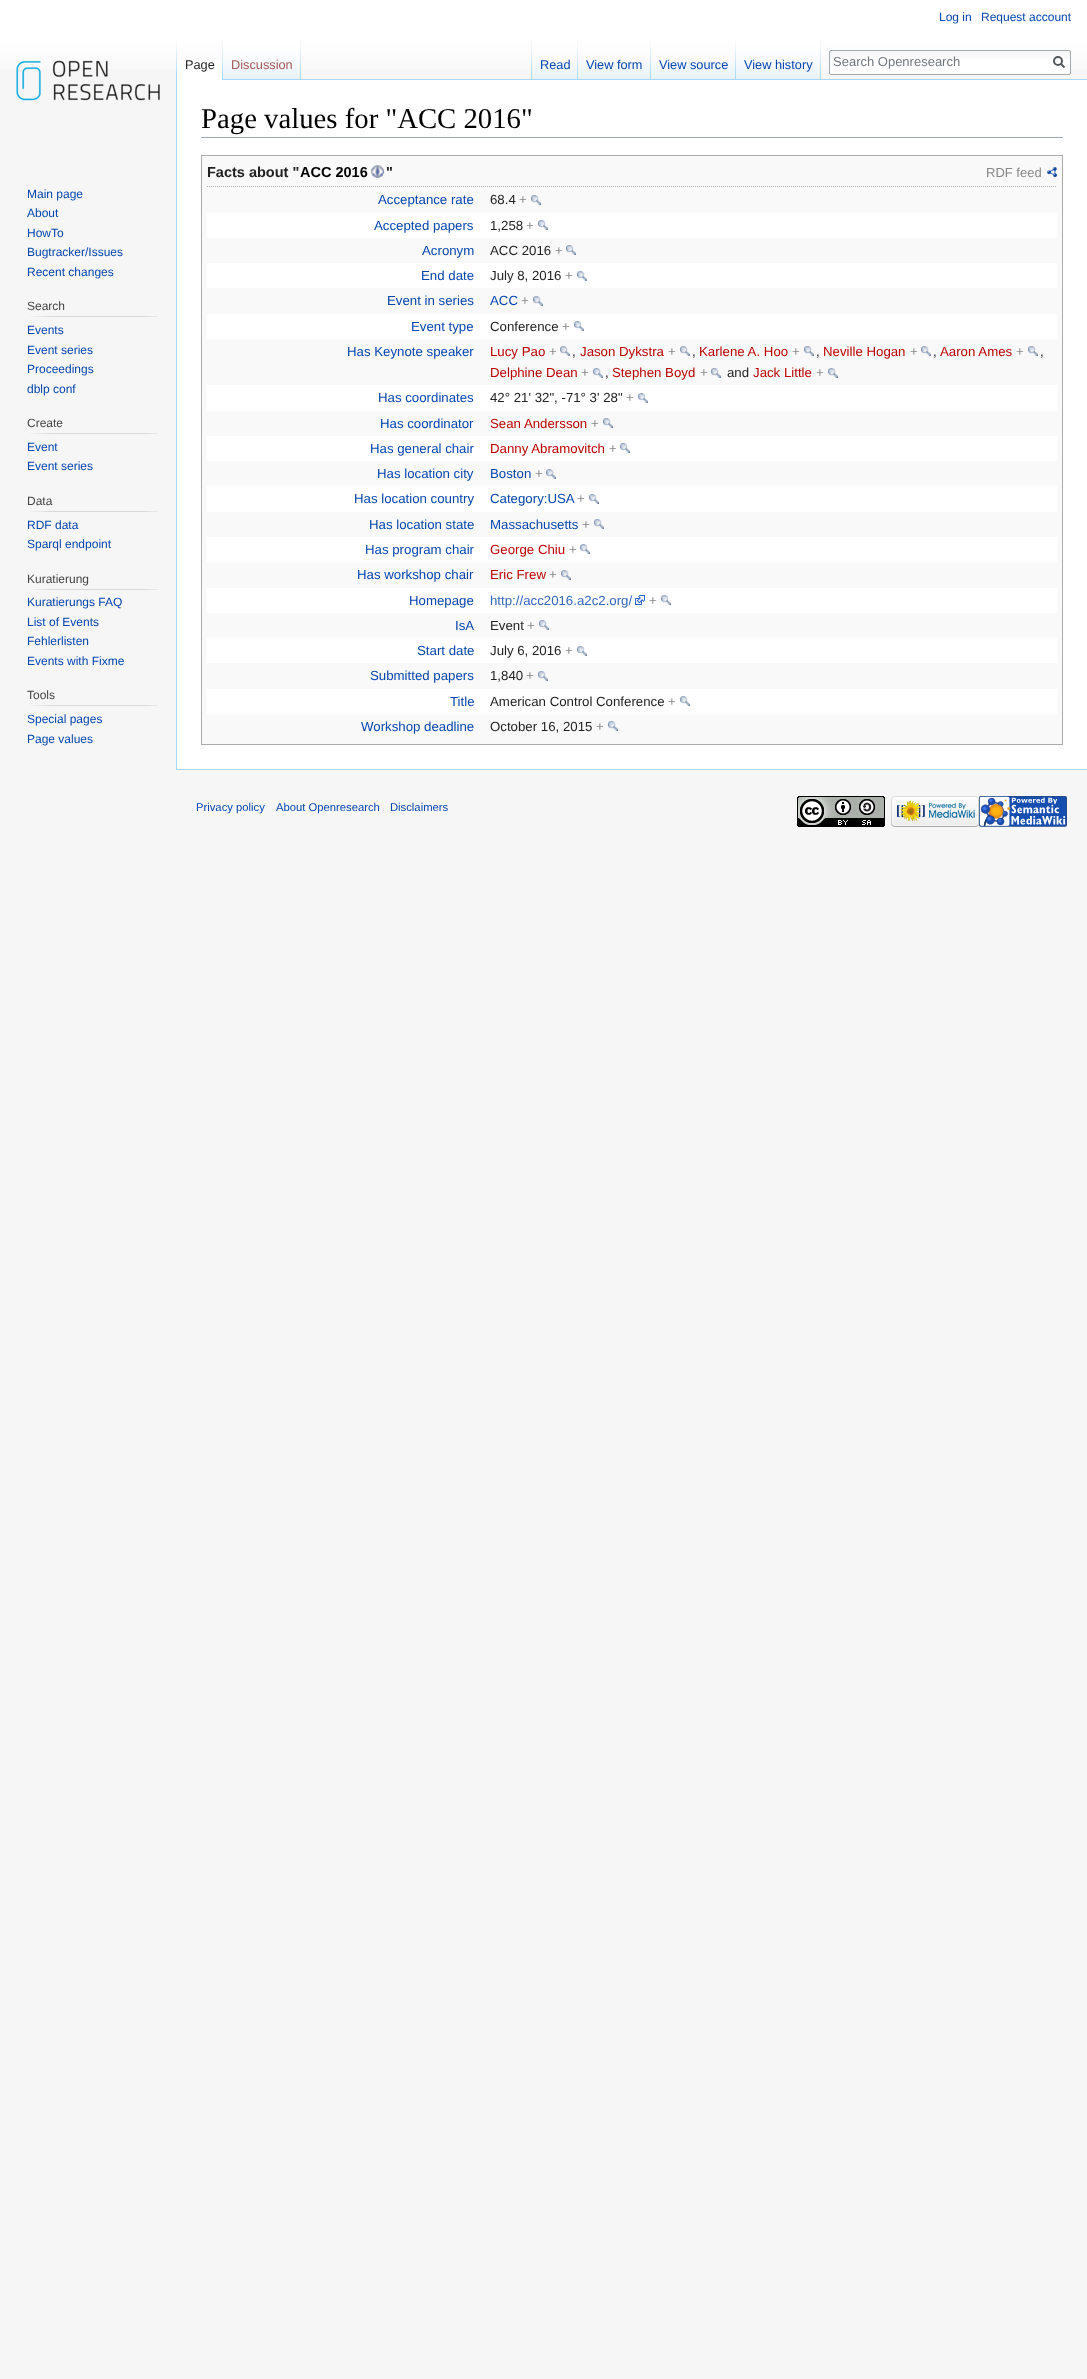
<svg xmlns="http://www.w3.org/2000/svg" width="1087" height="2379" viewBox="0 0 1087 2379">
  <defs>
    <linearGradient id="g1" gradientUnits="userSpaceOnUse" x1="544" y1="0" x2="544" y2="80"><stop offset="0.5" stop-color="rgb(255,255,255)"/><stop offset="1" stop-color="rgb(246,246,246)"/></linearGradient>
  </defs>
  <rect width="100%" height="100%" fill="rgb(246,246,246)"/>
  <rect x="0" y="0" width="1087" height="69" fill="url(#g1)"/>
  <g font-family="Liberation Sans" font-size="12" fill="rgb(6,69,173)">
    <text x="939" y="21">Log in</text>
    <text x="981" y="21">Request account</text>
  </g>
  <image x="176" y="40" width="1" height="39" href="pic1.png"/>
  <rect x="177" y="60" width="45" height="20" fill="rgb(255,255,255)"/>
  <image x="222" y="40" width="1" height="40" href="pic2.png"/>
  <text x="185" y="69" font-family="Liberation Sans" font-size="12.75" fill="rgb(34,34,34)">Page</text>
  <image x="223" y="40" width="77" height="39" href="pic3.png"/>
  <image x="300" y="40" width="1" height="39" href="pic1.png"/>
  <text x="231" y="69" font-family="Liberation Sans" font-size="12.75" fill="rgb(165,88,88)">Discussion</text>
  <image x="531" y="40" width="1" height="39" href="pic1.png"/>
  <image x="532" y="62" width="45" height="17" href="pic4.png"/>
  <image x="577" y="40" width="1" height="39" href="pic1.png"/>
  <text x="540" y="69" font-family="Liberation Sans" font-size="12.75" fill="rgb(6,69,173)">Read</text>
  <image x="578" y="62" width="72" height="17" href="pic5.png"/>
  <image x="650" y="40" width="1" height="39" href="pic1.png"/>
  <text x="586" y="69" font-family="Liberation Sans" font-size="12.75" fill="rgb(6,69,173)">View form</text>
  <image x="651" y="62" width="84" height="17" href="pic6.png"/>
  <image x="735" y="40" width="1" height="39" href="pic1.png"/>
  <text x="659" y="69" font-family="Liberation Sans" font-size="12.75" fill="rgb(6,69,173)">View source</text>
  <image x="736" y="40" width="84" height="39" href="pic7.png"/>
  <image x="820" y="40" width="1" height="39" href="pic1.png"/>
  <text x="744" y="69" font-family="Liberation Sans" font-size="12.75" fill="rgb(6,69,173)">View history</text>
  <rect x="829" y="50" width="242" height="25" rx="2" fill="rgb(255,255,255)"/>
  <image x="829" y="51" width="242" height="8" href="pic8.png"/>
  <rect x="829.5" y="50.5" width="241" height="24" rx="1.5" fill="none" stroke="rgb(162,169,177)"/>
  <text x="833" y="66" font-family="Liberation Sans" font-size="13" fill="rgb(114,119,125)">Search Openresearch</text>
  <path d="M1064.5 67.5L1060.5 63.5" fill="none" stroke="rgb(84,89,93)" stroke-width="2"/>
  <circle cx="1058" cy="61" r="4" fill="none" stroke="rgb(84,89,93)" stroke-width="2"/>
  <image x="16" y="60" width="144" height="41" href="pic9.png"/>
  <g font-family="Liberation Sans" font-size="12" fill="rgb(6,69,173)">
    <text>
      <tspan x="27" y="198">Main page</tspan>
      <tspan x="27" y="217">About</tspan>
      <tspan x="27" y="237">HowTo</tspan>
      <tspan x="27" y="256">Bugtracker/Issues</tspan>
      <tspan x="27" y="276">Recent changes</tspan>
    </text>
  </g>
  <text x="27" y="310" font-family="Liberation Sans" font-size="12" fill="rgb(68,68,68)">Search</text>
  <image x="30" y="316" width="128" height="1" href="pic10.png"/>
  <g font-family="Liberation Sans" font-size="12" fill="rgb(6,69,173)">
    <text>
      <tspan x="27" y="334">Events</tspan>
      <tspan x="27" y="354">Event series</tspan>
      <tspan x="27" y="373">Proceedings</tspan>
      <tspan x="27" y="393">dblp conf</tspan>
    </text>
  </g>
  <text x="27" y="427" font-family="Liberation Sans" font-size="12" fill="rgb(68,68,68)">Create</text>
  <image x="30" y="433" width="128" height="1" href="pic10.png"/>
  <g font-family="Liberation Sans" font-size="12" fill="rgb(6,69,173)">
    <text>
      <tspan x="27" y="451">Event</tspan>
      <tspan x="27" y="470">Event series</tspan>
    </text>
  </g>
  <text x="27" y="505" font-family="Liberation Sans" font-size="12" fill="rgb(68,68,68)">Data</text>
  <image x="30" y="511" width="128" height="1" href="pic10.png"/>
  <g font-family="Liberation Sans" font-size="12" fill="rgb(6,69,173)">
    <text>
      <tspan x="27" y="529">RDF data</tspan>
      <tspan x="27" y="548">Sparql endpoint</tspan>
    </text>
  </g>
  <text x="27" y="583" font-family="Liberation Sans" font-size="12" fill="rgb(68,68,68)">Kuratierung</text>
  <image x="30" y="589" width="128" height="1" href="pic10.png"/>
  <g font-family="Liberation Sans" font-size="12" fill="rgb(6,69,173)">
    <text>
      <tspan x="27" y="606">Kuratierungs FAQ</tspan>
      <tspan x="27" y="626">List of Events</tspan>
      <tspan x="27" y="645">Fehlerlisten</tspan>
      <tspan x="27" y="665">Events with Fixme</tspan>
    </text>
  </g>
  <text x="27" y="699" font-family="Liberation Sans" font-size="12" fill="rgb(68,68,68)">Tools</text>
  <image x="30" y="705" width="128" height="1" href="pic10.png"/>
  <g font-family="Liberation Sans" font-size="12" fill="rgb(6,69,173)">
    <text>
      <tspan x="27" y="723">Special pages</tspan>
      <tspan x="27" y="743">Page values</tspan>
    </text>
  </g>
  <rect x="177" y="80" width="910" height="689" fill="rgb(255,255,255)"/>
  <rect x="223" y="79" width="864" height="1" fill="rgb(167,215,249)"/>
  <rect x="176" y="769" width="911" height="1" fill="rgb(167,215,249)"/>
  <rect x="176" y="79" width="1" height="691" fill="rgb(167,215,249)"/>
  <rect x="201" y="137" width="862" height="1" fill="rgb(162,169,177)"/>
  <text x="201" y="128" font-family="Liberation Serif" font-size="28.75" fill="rgb(0,0,0)">Page values for "ACC 2016"</text>
  <rect x="201.5" y="155.5" width="861" height="589" fill="rgb(249,249,249)" stroke="rgb(170,170,170)"/>
  <text x="207" y="177" font-family="Liberation Sans" font-size="14.5" font-weight="bold" fill="rgb(34,34,34)">Facts about "</text>
  <text x="300" y="177" font-family="Liberation Sans" font-size="14.5" font-weight="bold" fill="rgb(0,0,0)">ACC 2016</text>
  <image x="371" y="165" width="13" height="13" href="pic11.png"/>
  <text x="386" y="177" font-family="Liberation Sans" font-size="14.5" font-weight="bold" fill="rgb(34,34,34)">"</text>
  <text x="986" y="177" font-family="Liberation Sans" font-size="13" fill="rgb(136,136,136)">RDF feed</text>
  <image x="1047" y="167" width="10" height="10" href="pic12.png"/>
  <path d="M207 186.5H1057" fill="none" stroke="rgb(170,170,170)" stroke-dasharray="1 1"/>
  <text x="378" y="204" font-family="Liberation Sans" font-size="13.25" fill="rgb(6,69,173)">Acceptance rate</text>
  <text x="490" y="204" font-family="Liberation Sans" font-size="13.25" fill="rgb(34,34,34)">68.4</text>
  <text x="519" y="204" font-family="Liberation Sans" font-size="13.25" fill="rgb(136,136,136)">+</text>
  <image x="531" y="195" width="10" height="10" href="pic13.png"/>
  <rect x="207" y="213" width="850" height="25" fill="rgb(255,255,255)"/>
  <text x="374" y="230" font-family="Liberation Sans" font-size="13.25" fill="rgb(6,69,173)">Accepted papers</text>
  <text x="490" y="230" font-family="Liberation Sans" font-size="13.25" fill="rgb(34,34,34)">1,258</text>
  <text x="526" y="230" font-family="Liberation Sans" font-size="13.25" fill="rgb(136,136,136)">+</text>
  <image x="538" y="220" width="10" height="10" href="pic14.png"/>
  <text x="422" y="255" font-family="Liberation Sans" font-size="13.25" fill="rgb(6,69,173)">Acronym</text>
  <text x="490" y="255" font-family="Liberation Sans" font-size="13.25" fill="rgb(34,34,34)">ACC 2016</text>
  <text x="555" y="255" font-family="Liberation Sans" font-size="13.25" fill="rgb(136,136,136)">+</text>
  <image x="566" y="245" width="10" height="10" href="pic15.png"/>
  <rect x="207" y="263" width="850" height="25" fill="rgb(255,255,255)"/>
  <text x="421" y="280" font-family="Liberation Sans" font-size="13.25" fill="rgb(6,69,173)">End date</text>
  <text x="490" y="280" font-family="Liberation Sans" font-size="13.25" fill="rgb(34,34,34)">July 8, 2016</text>
  <text x="565" y="280" font-family="Liberation Sans" font-size="13.25" fill="rgb(136,136,136)">+</text>
  <image x="577" y="271" width="10" height="10" href="pic16.png"/>
  <g font-family="Liberation Sans" font-size="13.25" fill="rgb(6,69,173)">
    <text x="387" y="305">Event in series</text>
    <text x="490" y="305">ACC</text>
  </g>
  <text x="521" y="305" font-family="Liberation Sans" font-size="13.25" fill="rgb(136,136,136)">+</text>
  <image x="533" y="296" width="10" height="10" href="pic15.png"/>
  <rect x="207" y="314" width="850" height="25" fill="rgb(255,255,255)"/>
  <text x="411" y="331" font-family="Liberation Sans" font-size="13.25" fill="rgb(6,69,173)">Event type</text>
  <text x="490" y="331" font-family="Liberation Sans" font-size="13.25" fill="rgb(34,34,34)">Conference</text>
  <text x="562" y="331" font-family="Liberation Sans" font-size="13.25" fill="rgb(136,136,136)">+</text>
  <image x="574" y="321" width="10" height="10" href="pic16.png"/>
  <text x="347" y="356" font-family="Liberation Sans" font-size="13.25" fill="rgb(6,69,173)">Has Keynote speaker</text>
  <text x="490" y="356" font-family="Liberation Sans" font-size="13.25" fill="rgb(186,0,0)">Lucy Pao</text>
  <text x="549" y="356" font-family="Liberation Sans" font-size="13.25" fill="rgb(136,136,136)">+</text>
  <image x="560" y="346" width="10" height="10" href="pic13.png"/>
  <text x="580" y="356" font-family="Liberation Sans" font-size="13.25" fill="rgb(186,0,0)">Jason Dykstra</text>
  <text x="668" y="356" font-family="Liberation Sans" font-size="13.25" fill="rgb(136,136,136)">+</text>
  <image x="680" y="346" width="10" height="10" href="pic13.png"/>
  <text x="699" y="356" font-family="Liberation Sans" font-size="13.25" fill="rgb(186,0,0)">Karlene A. Hoo</text>
  <text x="792" y="356" font-family="Liberation Sans" font-size="13.25" fill="rgb(136,136,136)">+</text>
  <image x="804" y="346" width="10" height="10" href="pic13.png"/>
  <text x="823" y="356" font-family="Liberation Sans" font-size="13.25" fill="rgb(186,0,0)">Neville Hogan</text>
  <text x="910" y="356" font-family="Liberation Sans" font-size="13.25" fill="rgb(136,136,136)">+</text>
  <image x="921" y="346" width="10" height="10" href="pic13.png"/>
  <text x="940" y="356" font-family="Liberation Sans" font-size="13.25" fill="rgb(186,0,0)">Aaron Ames</text>
  <text x="1016" y="356" font-family="Liberation Sans" font-size="13.25" fill="rgb(136,136,136)">+</text>
  <image x="1028" y="346" width="10" height="10" href="pic13.png"/>
  <g font-family="Liberation Sans" font-size="13.25" fill="rgb(34,34,34)">
    <text x="572" y="356">,</text>
    <text x="692" y="356">,</text>
    <text x="816" y="356">,</text>
    <text x="933" y="356">,</text>
    <text x="1040" y="356">,</text>
  </g>
  <text x="490" y="377" font-family="Liberation Sans" font-size="13.25" fill="rgb(186,0,0)">Delphine Dean</text>
  <text x="581" y="377" font-family="Liberation Sans" font-size="13.25" fill="rgb(136,136,136)">+</text>
  <image x="593" y="368" width="10" height="10" href="pic15.png"/>
  <text x="612" y="377" font-family="Liberation Sans" font-size="13.25" fill="rgb(186,0,0)">Stephen Boyd</text>
  <text x="700" y="377" font-family="Liberation Sans" font-size="13.25" fill="rgb(136,136,136)">+</text>
  <image x="711" y="368" width="10" height="10" href="pic13.png"/>
  <text x="727" y="377" font-family="Liberation Sans" font-size="13.25" fill="rgb(34,34,34)">and</text>
  <text x="753" y="377" font-family="Liberation Sans" font-size="13.25" fill="rgb(186,0,0)">Jack Little</text>
  <text x="816" y="377" font-family="Liberation Sans" font-size="13.25" fill="rgb(136,136,136)">+</text>
  <image x="828" y="368" width="10" height="10" href="pic15.png"/>
  <text x="605" y="377" font-family="Liberation Sans" font-size="13.25" fill="rgb(34,34,34)">,</text>
  <rect x="207" y="385" width="850" height="26" fill="rgb(255,255,255)"/>
  <text x="378" y="402" font-family="Liberation Sans" font-size="13.25" fill="rgb(6,69,173)">Has coordinates</text>
  <text x="490" y="402" font-family="Liberation Sans" font-size="13.25" fill="rgb(34,34,34)">42° 21' 32", -71° 3' 28"</text>
  <text x="626" y="402" font-family="Liberation Sans" font-size="13.25" fill="rgb(136,136,136)">+</text>
  <image x="638" y="393" width="10" height="10" href="pic14.png"/>
  <text x="380" y="428" font-family="Liberation Sans" font-size="13.25" fill="rgb(6,69,173)">Has coordinator</text>
  <text x="490" y="428" font-family="Liberation Sans" font-size="13.25" fill="rgb(186,0,0)">Sean Andersson</text>
  <text x="591" y="428" font-family="Liberation Sans" font-size="13.25" fill="rgb(136,136,136)">+</text>
  <image x="603" y="418" width="10" height="10" href="pic15.png"/>
  <rect x="207" y="436" width="850" height="25" fill="rgb(255,255,255)"/>
  <text x="370" y="453" font-family="Liberation Sans" font-size="13.25" fill="rgb(6,69,173)">Has general chair</text>
  <text x="490" y="453" font-family="Liberation Sans" font-size="13.25" fill="rgb(186,0,0)">Danny Abramovitch</text>
  <text x="609" y="453" font-family="Liberation Sans" font-size="13.25" fill="rgb(136,136,136)">+</text>
  <image x="620" y="443" width="10" height="10" href="pic16.png"/>
  <g font-family="Liberation Sans" font-size="13.25" fill="rgb(6,69,173)">
    <text x="377" y="478">Has location city</text>
    <text x="490" y="478">Boston</text>
  </g>
  <text x="535" y="478" font-family="Liberation Sans" font-size="13.25" fill="rgb(136,136,136)">+</text>
  <image x="546" y="469" width="10" height="10" href="pic15.png"/>
  <rect x="207" y="486" width="850" height="26" fill="rgb(255,255,255)"/>
  <g font-family="Liberation Sans" font-size="13.25" fill="rgb(6,69,173)">
    <text x="354" y="503">Has location country</text>
    <text x="490" y="503">Category:USA</text>
  </g>
  <text x="577" y="503" font-family="Liberation Sans" font-size="13.25" fill="rgb(136,136,136)">+</text>
  <image x="589" y="494" width="10" height="10" href="pic16.png"/>
  <g font-family="Liberation Sans" font-size="13.25" fill="rgb(6,69,173)">
    <text x="369" y="529">Has location state</text>
    <text x="490" y="529">Massachusetts</text>
  </g>
  <text x="582" y="529" font-family="Liberation Sans" font-size="13.25" fill="rgb(136,136,136)">+</text>
  <image x="594" y="519" width="10" height="10" href="pic15.png"/>
  <rect x="207" y="537" width="850" height="25" fill="rgb(255,255,255)"/>
  <text x="365" y="554" font-family="Liberation Sans" font-size="13.25" fill="rgb(6,69,173)">Has program chair</text>
  <text x="490" y="554" font-family="Liberation Sans" font-size="13.25" fill="rgb(186,0,0)">George Chiu</text>
  <text x="569" y="554" font-family="Liberation Sans" font-size="13.25" fill="rgb(136,136,136)">+</text>
  <image x="580" y="544" width="10" height="10" href="pic16.png"/>
  <text x="357" y="579" font-family="Liberation Sans" font-size="13.25" fill="rgb(6,69,173)">Has workshop chair</text>
  <text x="490" y="579" font-family="Liberation Sans" font-size="13.25" fill="rgb(186,0,0)">Eric Frew</text>
  <text x="549" y="579" font-family="Liberation Sans" font-size="13.25" fill="rgb(136,136,136)">+</text>
  <image x="561" y="570" width="10" height="10" href="pic13.png"/>
  <rect x="207" y="588" width="850" height="25" fill="rgb(255,255,255)"/>
  <text x="409" y="605" font-family="Liberation Sans" font-size="13.25" fill="rgb(6,69,173)">Homepage</text>
  <text x="490" y="605" font-family="Liberation Sans" font-size="13.25" fill="rgb(51,102,187)">http://acc2016.a2c2.org/</text>
  <image x="635" y="595" width="10" height="10" href="pic17.png"/>
  <text x="649" y="605" font-family="Liberation Sans" font-size="13.25" fill="rgb(136,136,136)">+</text>
  <image x="661" y="595" width="10" height="10" href="pic14.png"/>
  <text x="455" y="630" font-family="Liberation Sans" font-size="13.25" fill="rgb(6,69,173)">IsA</text>
  <text x="490" y="630" font-family="Liberation Sans" font-size="13.25" fill="rgb(34,34,34)">Event</text>
  <text x="527" y="630" font-family="Liberation Sans" font-size="13.25" fill="rgb(136,136,136)">+</text>
  <image x="539" y="620" width="10" height="10" href="pic13.png"/>
  <rect x="207" y="638" width="850" height="25" fill="rgb(255,255,255)"/>
  <text x="417" y="655" font-family="Liberation Sans" font-size="13.25" fill="rgb(6,69,173)">Start date</text>
  <text x="490" y="655" font-family="Liberation Sans" font-size="13.25" fill="rgb(34,34,34)">July 6, 2016</text>
  <text x="565" y="655" font-family="Liberation Sans" font-size="13.25" fill="rgb(136,136,136)">+</text>
  <image x="577" y="646" width="10" height="10" href="pic16.png"/>
  <text x="370" y="680" font-family="Liberation Sans" font-size="13.25" fill="rgb(6,69,173)">Submitted papers</text>
  <text x="490" y="680" font-family="Liberation Sans" font-size="13.25" fill="rgb(34,34,34)">1,840</text>
  <text x="526" y="680" font-family="Liberation Sans" font-size="13.25" fill="rgb(136,136,136)">+</text>
  <image x="538" y="671" width="10" height="10" href="pic13.png"/>
  <rect x="207" y="689" width="850" height="25" fill="rgb(255,255,255)"/>
  <text x="450" y="706" font-family="Liberation Sans" font-size="13.25" fill="rgb(6,69,173)">Title</text>
  <text x="490" y="706" font-family="Liberation Sans" font-size="13.25" fill="rgb(34,34,34)">American Control Conference</text>
  <text x="668" y="706" font-family="Liberation Sans" font-size="13.25" fill="rgb(136,136,136)">+</text>
  <image x="680" y="696" width="10" height="10" href="pic14.png"/>
  <text x="361" y="731" font-family="Liberation Sans" font-size="13.25" fill="rgb(6,69,173)">Workshop deadline</text>
  <text x="490" y="731" font-family="Liberation Sans" font-size="13.25" fill="rgb(34,34,34)">October 16, 2015</text>
  <text x="596" y="731" font-family="Liberation Sans" font-size="13.25" fill="rgb(136,136,136)">+</text>
  <image x="608" y="721" width="10" height="10" href="pic15.png"/>
  <g font-family="Liberation Sans" font-size="11.25" fill="rgb(6,69,173)">
    <text x="196" y="811">Privacy policy</text>
    <text x="276" y="811">About Openresearch</text>
    <text x="390" y="811">Disclaimers</text>
  </g>
  <image x="797" y="796" width="88" height="31" href="pic18.png"/>
  <image x="891" y="796" width="88" height="31" href="pic19.png"/>
  <image x="979" y="796" width="88" height="31" href="pic20.png"/>
</svg>
